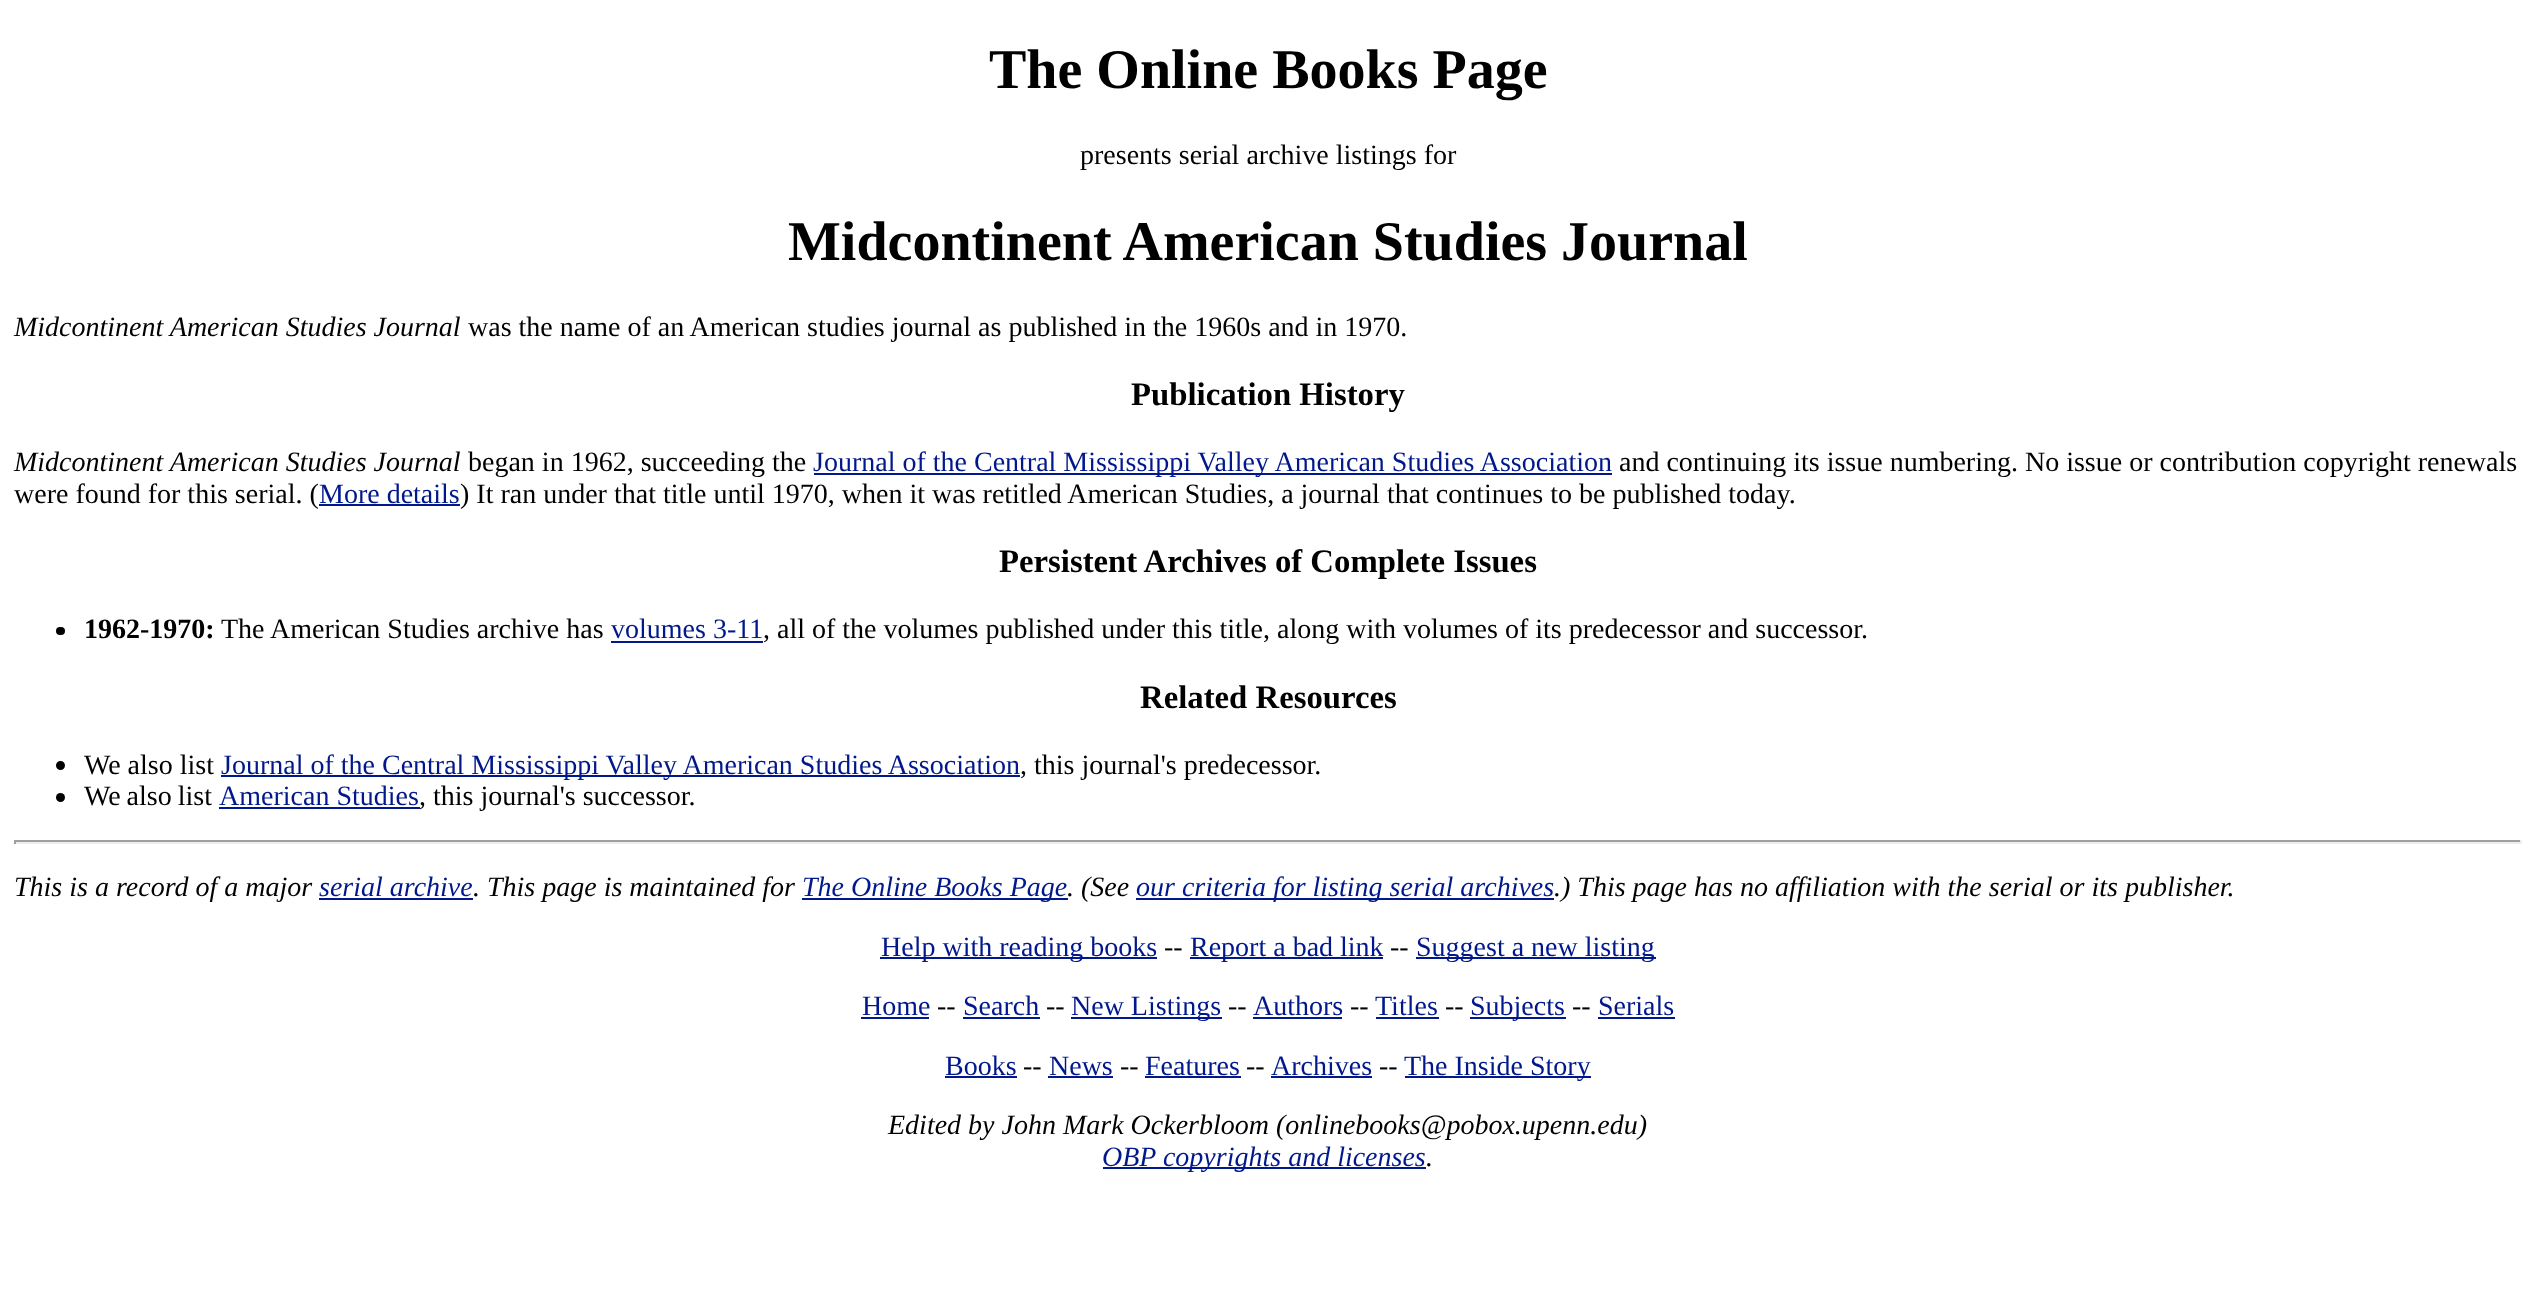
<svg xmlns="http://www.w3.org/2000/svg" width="2535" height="1300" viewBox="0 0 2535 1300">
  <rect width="100%" height="100%" fill="rgb(255,255,255)"/>
  <text x="989" y="88" font-family="Liberation Serif" font-size="56" font-weight="bold" fill="rgb(0,0,0)">The Online Books Page</text>
  <text x="1080" y="164" font-family="Liberation Serif" font-size="28" fill="rgb(0,0,0)">presents serial archive listings for</text>
  <text x="788" y="260" font-family="Liberation Serif" font-size="56" font-weight="bold" fill="rgb(0,0,0)">Midcontinent American Studies Journal</text>
  <text x="14" y="336" font-family="Liberation Serif" font-size="28" font-style="italic" fill="rgb(0,0,0)">Midcontinent American Studies Journal</text>
  <text x="468" y="336" font-family="Liberation Serif" font-size="28" fill="rgb(0,0,0)">was the name of an American studies journal as published in the 1960s and in 1970.</text>
  <text x="1131" y="405" font-family="Liberation Serif" font-size="32.75" font-weight="bold" fill="rgb(0,0,0)">Publication History</text>
  <text x="14" y="471" font-family="Liberation Serif" font-size="28" font-style="italic" fill="rgb(0,0,0)">Midcontinent American Studies Journal</text>
  <text x="468" y="471" font-family="Liberation Serif" font-size="28" fill="rgb(0,0,0)">began in 1962, succeeding the</text>
  <rect x="814" y="473" width="798" height="2" fill="rgb(0,24,140)"/>
  <text x="813" y="471" font-family="Liberation Serif" font-size="28" fill="rgb(0,24,140)">Journal of the Central Mississippi Valley American Studies Association</text>
  <g font-family="Liberation Serif" font-size="28" fill="rgb(0,0,0)">
    <text x="1619" y="471">and continuing its issue numbering. No issue or contribution copyright renewals</text>
    <text x="14" y="503">were found for this serial. (</text>
  </g>
  <text x="319" y="503" font-family="Liberation Serif" font-size="28" fill="rgb(0,24,140)">More details</text>
  <rect x="319" y="504" width="141" height="2" fill="rgb(0,24,140)"/>
  <text x="460" y="503" font-family="Liberation Serif" font-size="28" fill="rgb(0,0,0)">) It ran under that title until 1970, when it was retitled American Studies, a journal that continues to be published today.</text>
  <text x="999" y="572" font-family="Liberation Serif" font-size="32.75" font-weight="bold" fill="rgb(0,0,0)">Persistent Archives of Complete Issues</text>
  <rect x="56" y="627" width="9" height="8" rx="4" fill="rgb(0,0,0)"/>
  <text x="84" y="638" font-family="Liberation Serif" font-size="28" font-weight="bold" fill="rgb(0,0,0)">1962-1970:</text>
  <text x="221" y="638" font-family="Liberation Serif" font-size="28" fill="rgb(0,0,0)">The American Studies archive has</text>
  <text x="611" y="638" font-family="Liberation Serif" font-size="28" fill="rgb(0,24,140)">volumes 3-11</text>
  <rect x="611" y="641" width="152" height="2" fill="rgb(0,24,140)"/>
  <text x="763" y="638" font-family="Liberation Serif" font-size="28" fill="rgb(0,0,0)">, all of the volumes published under this title, along with volumes of its predecessor and successor.</text>
  <text x="1140" y="708" font-family="Liberation Serif" font-size="32.75" font-weight="bold" fill="rgb(0,0,0)">Related Resources</text>
  <circle cx="60.5" cy="765.5" r="4.5" fill="rgb(0,0,0)"/>
  <text x="84" y="774" font-family="Liberation Serif" font-size="28" fill="rgb(0,0,0)">We also list</text>
  <rect x="221" y="775" width="799" height="2" fill="rgb(0,24,140)"/>
  <text x="221" y="774" font-family="Liberation Serif" font-size="28" fill="rgb(0,24,140)">Journal of the Central Mississippi Valley American Studies Association</text>
  <text x="1020" y="774" font-family="Liberation Serif" font-size="28" fill="rgb(0,0,0)">, this journal's predecessor.</text>
  <circle cx="60.5" cy="797.5" r="4.5" fill="rgb(0,0,0)"/>
  <text x="84" y="805" word-spacing="-1" font-family="Liberation Serif" font-size="28" fill="rgb(0,0,0)">We also list</text>
  <text x="219" y="805" font-family="Liberation Serif" font-size="28" fill="rgb(0,24,140)">American Studies</text>
  <rect x="219" y="807" width="201" height="2" fill="rgb(0,24,140)"/>
  <text x="419" y="805" font-family="Liberation Serif" font-size="28" fill="rgb(0,0,0)">, this journal's successor.</text>
  <rect x="14" y="840" width="2508" height="2" fill="rgb(159,159,159)"/>
  <rect x="2520" y="840" width="2" height="4" fill="rgb(238,238,238)"/>
  <rect x="14" y="842" width="2508" height="2" fill="rgb(238,238,238)"/>
  <rect x="14" y="840" width="2" height="4" fill="rgb(159,159,159)"/>
  <text x="14" y="896" font-family="Liberation Serif" font-size="28" font-style="italic" fill="rgb(0,0,0)">This is a record of a major</text>
  <text x="319" y="896" font-family="Liberation Serif" font-size="28" font-style="italic" fill="rgb(0,24,140)">serial archive</text>
  <text x="473" y="896" font-family="Liberation Serif" font-size="28" font-style="italic" fill="rgb(0,0,0)">. This page is maintained for</text>
  <rect x="319" y="898" width="154" height="2" fill="rgb(0,24,140)"/>
  <rect x="802" y="898" width="266" height="2" fill="rgb(0,24,140)"/>
  <text x="802" y="896" font-family="Liberation Serif" font-size="28" font-style="italic" fill="rgb(0,24,140)">The Online Books Page</text>
  <text x="1067" y="896" font-family="Liberation Serif" font-size="28" font-style="italic" fill="rgb(0,0,0)">. (See</text>
  <rect x="1136" y="898" width="418" height="2" fill="rgb(0,24,140)"/>
  <text x="1136" y="896" font-family="Liberation Serif" font-size="28" font-style="italic" fill="rgb(0,24,140)">our criteria for listing serial archives</text>
  <text x="1554" y="896" font-family="Liberation Serif" font-size="28" font-style="italic" fill="rgb(0,0,0)">.) This page has no affiliation with the serial or its publisher.</text>
  <rect x="880" y="957" width="277" height="2" fill="rgb(0,24,140)"/>
  <text x="881" y="956" font-family="Liberation Serif" font-size="28" fill="rgb(0,24,140)">Help with reading books</text>
  <text x="1164" y="956" font-family="Liberation Serif" font-size="28" fill="rgb(0,0,0)">--</text>
  <rect x="1190" y="957" width="193" height="2" fill="rgb(0,24,140)"/>
  <text x="1190" y="956" font-family="Liberation Serif" font-size="28" fill="rgb(0,24,140)">Report a bad link</text>
  <text x="1390" y="956" font-family="Liberation Serif" font-size="28" fill="rgb(0,0,0)">--</text>
  <rect x="1416" y="957" width="240" height="2" fill="rgb(0,24,140)"/>
  <g font-family="Liberation Serif" font-size="28" fill="rgb(0,24,140)">
    <text x="1416" y="956">Suggest a new listing</text>
    <text x="862" y="1015">Home</text>
  </g>
  <rect x="861" y="1017" width="68" height="2" fill="rgb(0,24,140)"/>
  <text x="937" y="1015" font-family="Liberation Serif" font-size="28" fill="rgb(0,0,0)">--</text>
  <text x="963" y="1015" font-family="Liberation Serif" font-size="28" fill="rgb(0,24,140)">Search</text>
  <rect x="963" y="1017" width="77" height="2" fill="rgb(0,24,140)"/>
  <text x="1046" y="1015" font-family="Liberation Serif" font-size="28" fill="rgb(0,0,0)">--</text>
  <rect x="1071" y="1017" width="151" height="2" fill="rgb(0,24,140)"/>
  <text x="1071" y="1015" font-family="Liberation Serif" font-size="28" fill="rgb(0,24,140)">New Listings</text>
  <text x="1228" y="1015" font-family="Liberation Serif" font-size="28" fill="rgb(0,0,0)">--</text>
  <text x="1253" y="1015" font-family="Liberation Serif" font-size="28" fill="rgb(0,24,140)">Authors</text>
  <rect x="1253" y="1017" width="89" height="2" fill="rgb(0,24,140)"/>
  <text x="1350" y="1015" font-family="Liberation Serif" font-size="28" fill="rgb(0,0,0)">--</text>
  <text x="1375" y="1015" font-family="Liberation Serif" font-size="28" fill="rgb(0,24,140)">Titles</text>
  <rect x="1376" y="1017" width="63" height="2" fill="rgb(0,24,140)"/>
  <text x="1445" y="1015" font-family="Liberation Serif" font-size="28" fill="rgb(0,0,0)">--</text>
  <rect x="1470" y="1017" width="96" height="2" fill="rgb(0,24,140)"/>
  <text x="1470" y="1015" font-family="Liberation Serif" font-size="28" fill="rgb(0,24,140)">Subjects</text>
  <text x="1572" y="1015" font-family="Liberation Serif" font-size="28" fill="rgb(0,0,0)">--</text>
  <text x="1598" y="1015" font-family="Liberation Serif" font-size="28" fill="rgb(0,24,140)">Serials</text>
  <rect x="1598" y="1017" width="77" height="2" fill="rgb(0,24,140)"/>
  <text x="945" y="1075" font-family="Liberation Serif" font-size="28" fill="rgb(0,24,140)">Books</text>
  <rect x="945" y="1076" width="72" height="2" fill="rgb(0,24,140)"/>
  <text x="1023" y="1075" font-family="Liberation Serif" font-size="28" fill="rgb(0,0,0)">--</text>
  <text x="1049" y="1075" font-family="Liberation Serif" font-size="28" fill="rgb(0,24,140)">News</text>
  <rect x="1048" y="1076" width="65" height="2" fill="rgb(0,24,140)"/>
  <text x="1120" y="1075" font-family="Liberation Serif" font-size="28" fill="rgb(0,0,0)">--</text>
  <text x="1145" y="1075" font-family="Liberation Serif" font-size="28" fill="rgb(0,24,140)">Features</text>
  <rect x="1145" y="1076" width="96" height="2" fill="rgb(0,24,140)"/>
  <text x="1246" y="1075" font-family="Liberation Serif" font-size="28" fill="rgb(0,0,0)">--</text>
  <text x="1271" y="1075" font-family="Liberation Serif" font-size="28" fill="rgb(0,24,140)">Archives</text>
  <rect x="1271" y="1076" width="101" height="2" fill="rgb(0,24,140)"/>
  <text x="1379" y="1075" font-family="Liberation Serif" font-size="28" fill="rgb(0,0,0)">--</text>
  <rect x="1405" y="1076" width="186" height="2" fill="rgb(0,24,140)"/>
  <text x="1404" y="1075" font-family="Liberation Serif" font-size="28" fill="rgb(0,24,140)">The Inside Story</text>
  <text x="888" y="1134" font-family="Liberation Serif" font-size="28" font-style="italic" fill="rgb(0,0,0)">Edited by John Mark Ockerbloom (onlinebooks@pobox.upenn.edu)</text>
  <rect x="1103" y="1167" width="323" height="2" fill="rgb(0,24,140)"/>
  <text x="1102" y="1166" font-family="Liberation Serif" font-size="28" font-style="italic" fill="rgb(0,24,140)">OBP copyrights and licenses</text>
  <text x="1426" y="1166" font-family="Liberation Serif" font-size="28" font-style="italic" fill="rgb(0,0,0)">.</text>
</svg>
